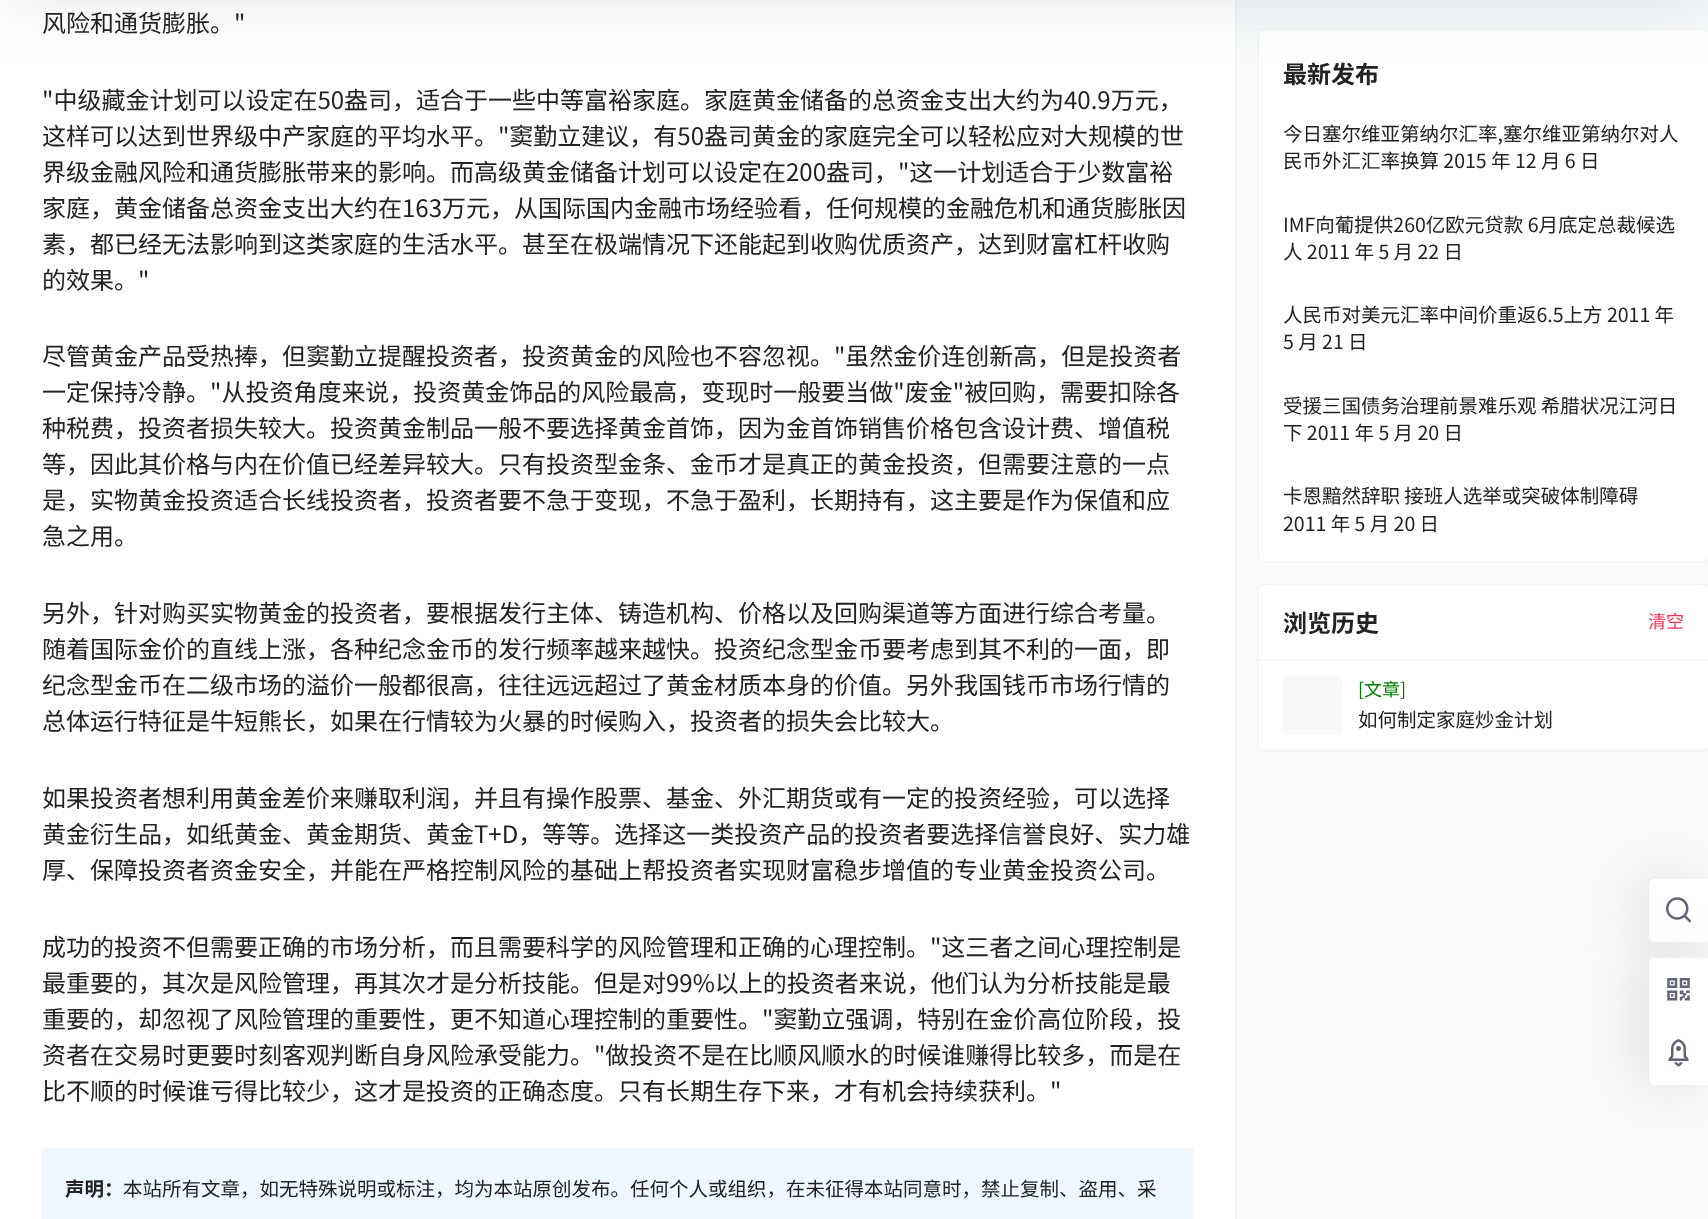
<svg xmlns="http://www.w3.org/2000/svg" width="1708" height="1219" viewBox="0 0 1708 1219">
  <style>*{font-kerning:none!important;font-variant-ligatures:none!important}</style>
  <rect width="100%" height="100%" fill="rgb(247,249,250)"/>
  <rect x="0" y="-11" width="1235" height="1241" rx="6" fill="rgba(98,124,153,0.1)" filter="blur(1.5px)"/>
  <rect x="0" y="0" width="1235" height="1219" fill="rgb(255,255,255)"/>
  <rect x="1259" y="30" width="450" height="531" rx="6" fill="rgba(98,124,153,0.1)" filter="blur(1.5px)"/>
  <rect x="1259" y="30" width="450" height="531" rx="6" fill="rgb(255,255,255)"/>
  <rect x="0" y="-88" width="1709" height="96" fill="rgba(17,58,93,0.1)" filter="blur(30px)"/>
  <g font-family="Noto Sans CJK SC" font-size="24" fill="rgb(34,34,34)">
    <text x="42" y="32">风险和通货膨胀。"</text>
    <text>
      <tspan x="42" y="109">"中级藏金计划可以设定在50盎司，适合于一些中等富裕家庭。家庭黄金储备的总资金支出大约为40.9万元，</tspan>
      <tspan x="42" y="145">这样可以达到世界级中产家庭的平均水平。"窦勤立建议，有50盎司黄金的家庭完全可以轻松应对大规模的世</tspan>
      <tspan x="42" y="181">界级金融风险和通货膨胀带来的影响。而高级黄金储备计划可以设定在200盎司，"这一计划适合于少数富裕</tspan>
      <tspan x="42" y="217">家庭，黄金储备总资金支出大约在163万元，从国际国内金融市场经验看，任何规模的金融危机和通货膨胀因</tspan>
      <tspan x="42" y="253">素，都已经无法影响到这类家庭的生活水平。甚至在极端情况下还能起到收购优质资产，达到财富杠杆收购</tspan>
      <tspan x="42" y="289">的效果。"</tspan>
    </text>
    <text>
      <tspan x="42" y="365">尽管黄金产品受热捧，但窦勤立提醒投资者，投资黄金的风险也不容忽视。"虽然金价连创新高，但是投资者</tspan>
      <tspan x="42" y="401">一定保持冷静。"从投资角度来说，投资黄金饰品的风险最高，变现时一般要当做"废金"被回购，需要扣除各</tspan>
      <tspan x="42" y="437">种税费，投资者损失较大。投资黄金制品一般不要选择黄金首饰，因为金首饰销售价格包含设计费、增值税</tspan>
      <tspan x="42" y="473">等，因此其价格与内在价值已经差异较大。只有投资型金条、金币才是真正的黄金投资，但需要注意的一点</tspan>
      <tspan x="42" y="509">是，实物黄金投资适合长线投资者，投资者要不急于变现，不急于盈利，长期持有，这主要是作为保值和应</tspan>
      <tspan x="42" y="545">急之用。</tspan>
    </text>
    <text>
      <tspan x="42" y="622">另外，针对购买实物黄金的投资者，要根据发行主体、铸造机构、价格以及回购渠道等方面进行综合考量。</tspan>
      <tspan x="42" y="658">随着国际金价的直线上涨，各种纪念金币的发行频率越来越快。投资纪念型金币要考虑到其不利的一面，即</tspan>
      <tspan x="42" y="694">纪念型金币在二级市场的溢价一般都很高，往往远远超过了黄金材质本身的价值。另外我国钱币市场行情的</tspan>
      <tspan x="42" y="730">总体运行特征是牛短熊长，如果在行情较为火暴的时候购入，投资者的损失会比较大。</tspan>
    </text>
    <text>
      <tspan x="42" y="807">如果投资者想利用黄金差价来赚取利润，并且有操作股票、基金、外汇期货或有一定的投资经验，可以选择</tspan>
      <tspan x="42" y="843">黄金衍生品，如纸黄金、黄金期货、黄金T+D，等等。选择这一类投资产品的投资者要选择信誉良好、实力雄</tspan>
      <tspan x="42" y="879">厚、保障投资者资金安全，并能在严格控制风险的基础上帮投资者实现财富稳步增值的专业黄金投资公司。</tspan>
    </text>
    <text>
      <tspan x="42" y="956">成功的投资不但需要正确的市场分析，而且需要科学的风险管理和正确的心理控制。"这三者之间心理控制是</tspan>
      <tspan x="42" y="992">最重要的，其次是风险管理，再其次才是分析技能。但是对99%以上的投资者来说，他们认为分析技能是最</tspan>
      <tspan x="42" y="1028">重要的，却忽视了风险管理的重要性，更不知道心理控制的重要性。"窦勤立强调，特别在金价高位阶段，投</tspan>
      <tspan x="42" y="1064">资者在交易时更要时刻客观判断自身风险承受能力。"做投资不是在比顺风顺水的时候谁赚得比较多，而是在</tspan>
      <tspan x="42" y="1100">比不顺的时候谁亏得比较少，这才是投资的正确态度。只有长期生存下来，才有机会持续获利。"</tspan>
    </text>
  </g>
  <rect x="42" y="1148" width="1151" height="71" fill="rgb(238,247,255)"/>
  <text x="65" y="1196" font-family="Noto Sans CJK SC" font-size="19.5" font-weight="bold" fill="rgb(34,34,34)">声明：</text>
  <text x="123" y="1196" font-family="Noto Sans CJK SC" font-size="19.5" fill="rgb(34,34,34)">本站所有文章，如无特殊说明或标注，均为本站原创发布。任何个人或组织，在未征得本站同意时，禁止复制、盗用、采</text>
  <text x="1283" y="83" font-family="Noto Sans CJK SC" font-size="24" font-weight="bold" fill="rgb(34,34,34)">最新发布</text>
  <g font-family="Noto Sans CJK SC" font-size="19.5" fill="rgb(34,34,34)">
    <text>
      <tspan x="1283" y="141">今日塞尔维亚第纳尔汇率,塞尔维亚第纳尔对人</tspan>
      <tspan x="1283" y="168">民币外汇汇率换算 2015 年 12 月 6 日</tspan>
    </text>
    <text>
      <tspan x="1283" y="232">IMF向葡提供260亿欧元贷款 6月底定总裁候选</tspan>
      <tspan x="1283" y="259">人 2011 年 5 月 22 日</tspan>
    </text>
    <text>
      <tspan x="1283" y="322">人民币对美元汇率中间价重返6.5上方 2011 年</tspan>
      <tspan x="1283" y="349">5 月 21 日</tspan>
    </text>
    <text>
      <tspan x="1283" y="413">受援三国债务治理前景难乐观 希腊状况江河日</tspan>
      <tspan x="1283" y="440">下 2011 年 5 月 20 日</tspan>
    </text>
    <text>
      <tspan x="1283" y="503">卡恩黯然辞职 接班人选举或突破体制障碍</tspan>
      <tspan x="1283" y="531">2011 年 5 月 20 日</tspan>
    </text>
  </g>
  <rect x="1259" y="585" width="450" height="165" rx="6" fill="rgba(98,124,153,0.1)" filter="blur(1.5px)"/>
  <rect x="1259" y="585" width="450" height="165" rx="6" fill="rgb(255,255,255)"/>
  <text x="1283" y="632" font-family="Noto Sans CJK SC" font-size="24" font-weight="bold" fill="rgb(34,34,34)">浏览历史</text>
  <text x="1648" y="628" font-family="Noto Sans CJK SC" font-size="18" fill="rgb(255,51,85)">清空</text>
  <rect x="1259" y="659" width="449" height="2" fill="rgb(245,246,247)"/>
  <image x="1282" y="675" width="61" height="60" href="pic1.png"/>
  <text x="1358" y="696" font-family="Noto Sans CJK SC" font-size="18" fill="rgb(0,128,0)">[文章]</text>
  <text x="1358" y="727" font-family="Noto Sans CJK SC" font-size="19.5" fill="rgb(34,34,34)">如何制定家庭炒金计划</text>
  <rect x="1637" y="879" width="60" height="63" rx="6" fill="rgba(181,181,181,0.32)" filter="blur(26px)"/>
  <path d="M1655 879H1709V942H1655C1651.5 942 1649 939.5 1649 936V885C1649 881.5 1651.5 879 1655 879Z" fill="rgb(255,255,255)"/>
  <image x="1666" y="897" width="26" height="26" href="pic2.png"/>
  <rect x="1637" y="957" width="60" height="128" rx="6" fill="rgba(181,181,181,0.32)" filter="blur(26px)"/>
  <path d="M1655 957H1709V1085H1655C1651.5 1085 1649 1082.5 1649 1079V963C1649 959.5 1651.5 957 1655 957Z" fill="rgb(255,255,255)"/>
  <rect x="1652" y="957" width="56" height="2" fill="rgb(245,246,247)"/>
  <image x="1667" y="978" width="23" height="23" href="pic3.png"/>
  <image x="1668" y="1039" width="21" height="28" href="pic4.png"/>
</svg>
